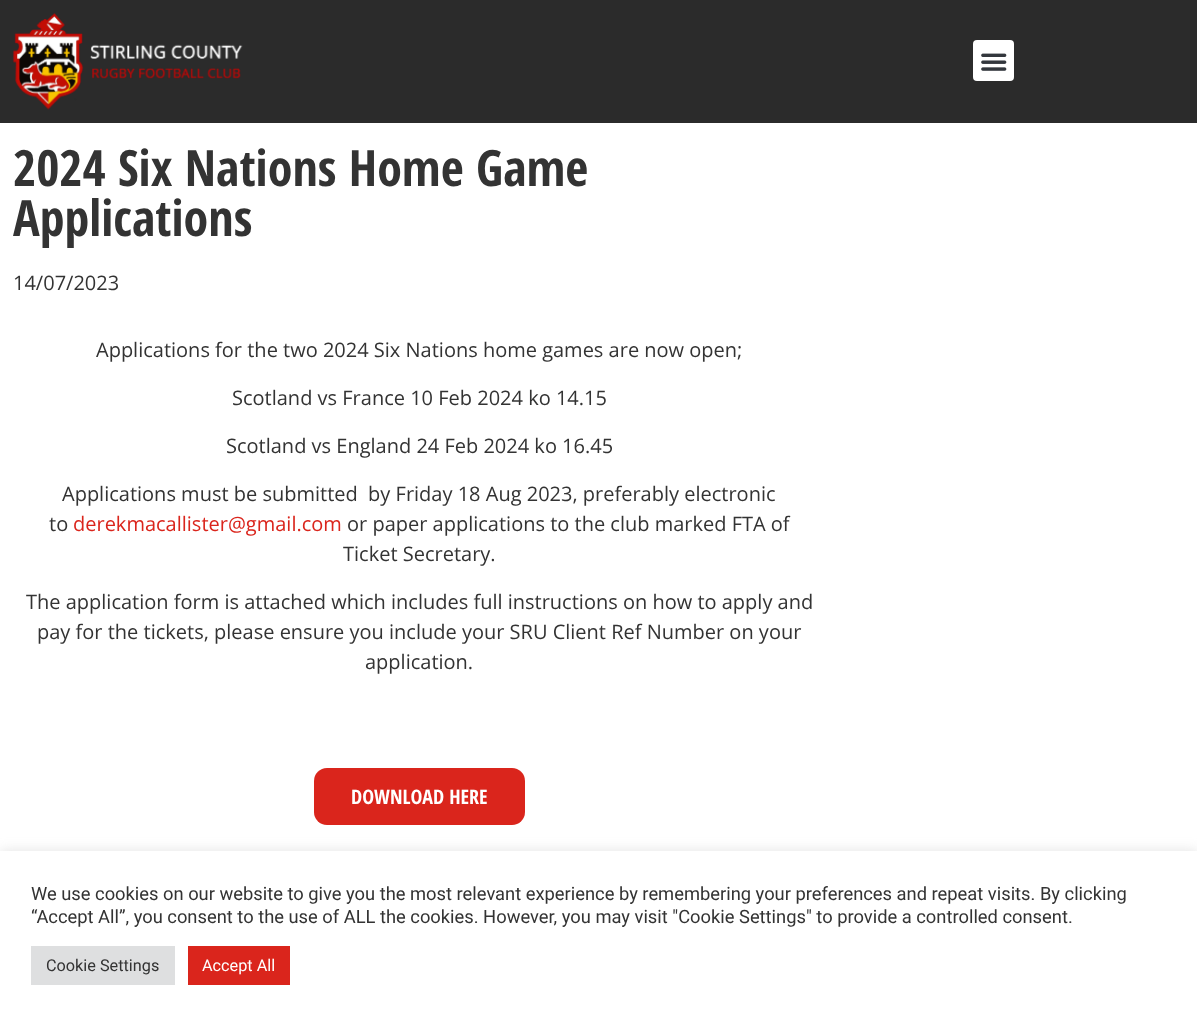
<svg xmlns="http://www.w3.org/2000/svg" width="1197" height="1022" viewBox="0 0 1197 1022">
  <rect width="100%" height="100%" fill="rgb(255,255,255)"/>
  <rect x="0" y="0" width="1197" height="123" fill="rgb(43,43,43)"/>
  <image x="12" y="13" width="231" height="97" href="pic1.png"/>
  <rect x="973" y="40" width="41" height="41" rx="4" fill="rgb(255,255,255)"/>
  <image x="981" y="53" width="26" height="18" href="pic2.png"/>
  <g font-family="Open Sans Condensed" font-size="50" font-weight="bold" fill="rgb(51,51,51)">
    <text>
      <tspan x="13" y="186">2024 Six Nations Home Game</tspan>
      <tspan x="13" y="236">Applications</tspan>
    </text>
  </g>
  <g font-family="Open Sans" font-size="20" fill="rgb(51,51,51)">
    <text x="13" y="290">14/07/2023</text>
    <text x="96" y="357">Applications for the two 2024 Six Nations home games are now open;</text>
    <text x="232" y="405">Scotland vs France 10 Feb 2024 ko 14.15</text>
    <text x="226" y="453">Scotland vs England 24 Feb 2024 ko 16.45</text>
    <text x="62" y="501" xml:space="preserve">Applications must be submitted  by Friday 18 Aug 2023, preferably electronic</text>
    <text x="49" y="531">to</text>
  </g>
  <text x="73" y="531" font-family="Open Sans" font-size="20" fill="rgb(218,37,28)">derekmacallister@gmail.com</text>
  <g font-family="Open Sans" font-size="20" fill="rgb(51,51,51)">
    <text x="347" y="531">or paper applications to the club marked FTA of</text>
    <text x="343" y="561">Ticket Secretary.</text>
    <text x="26" y="609">The application form is attached which includes full instructions on how to apply and</text>
    <text x="37" y="639">pay for the tickets, please ensure you include your SRU Client Ref Number on your</text>
    <text x="365" y="669">application.</text>
  </g>
  <rect x="314" y="768" width="211" height="57" rx="13" fill="rgb(218,37,28)"/>
  <text x="351" y="804" font-family="Open Sans Condensed" font-size="20" font-weight="bold" fill="rgb(255,255,255)">DOWNLOAD HERE</text>
  <rect x="0" y="850" width="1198" height="171" fill="rgba(172,171,171,0.3)" filter="blur(6px)"/>
  <rect x="0" y="851" width="1197" height="171" fill="rgb(255,255,255)"/>
  <g font-family="Roboto" font-size="18.33" fill="rgb(51,51,51)">
    <text>
      <tspan x="31" y="900">We use cookies on our website to give you the most relevant experience by remembering your preferences and repeat visits. By clicking</tspan>
      <tspan x="31" y="923">“Accept All”, you consent to the use of ALL the cookies. However, you may visit "Cookie Settings" to provide a controlled consent.</tspan>
    </text>
  </g>
  <rect x="31" y="946" width="144" height="39" fill="rgb(222,223,224)"/>
  <text x="46" y="971" font-family="Roboto" font-size="16.25" fill="rgb(51,51,51)">Cookie Settings</text>
  <rect x="188" y="946" width="102" height="39" fill="rgb(218,37,28)"/>
  <text x="202" y="971" font-family="Roboto" font-size="16.25" fill="rgb(255,255,255)">Accept All</text>
</svg>
